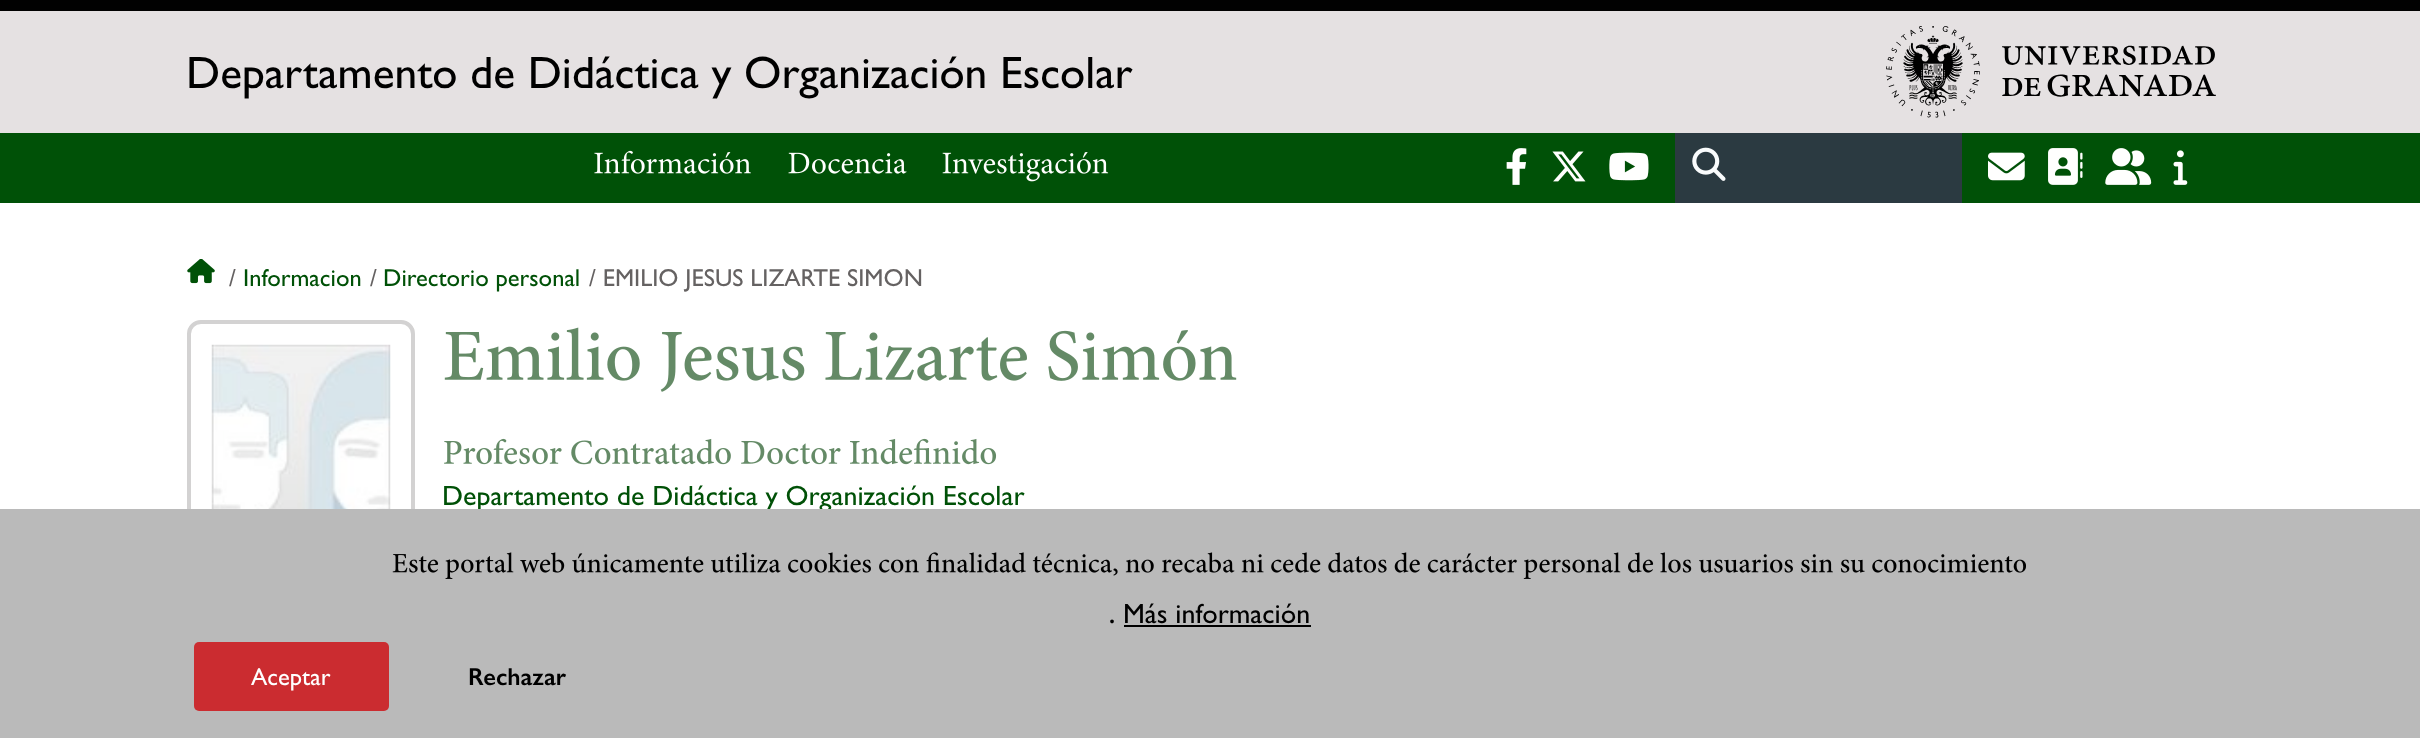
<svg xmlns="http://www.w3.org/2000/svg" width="2420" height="738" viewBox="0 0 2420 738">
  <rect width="100%" height="100%" fill="rgb(255,255,255)"/>
  <rect x="0" y="0" width="2420" height="11" fill="rgb(1,1,1)"/>
  <rect x="0" y="133" width="2420" height="70" fill="rgb(0,81,7)"/>
  <rect x="0" y="11" width="2420" height="122" fill="rgb(229,225,226)"/>
  <text x="186" y="88" font-family="Gill Sans" font-size="45.5" fill="rgb(0,0,0)">Departamento de Didáctica y Organización Escolar</text>
  <image x="1886" y="26" width="330" height="92" href="pic1.png"/>
  <image x="594" y="150" width="157" height="24" href="pic2.png"/>
  <image x="788" y="152" width="119" height="22" href="pic3.png"/>
  <image x="942" y="152" width="167" height="30" href="pic4.png"/>
  <image x="1506" y="148" width="21" height="37" href="pic5.png"/>
  <image x="1552" y="151" width="34" height="31" href="pic6.png"/>
  <image x="1609" y="152" width="40" height="29" href="pic7.png"/>
  <rect x="1675" y="133" width="287" height="70" fill="rgb(43,58,65)"/>
  <image x="1692" y="147" width="34" height="34" href="pic8.png"/>
  <image x="1988" y="152" width="37" height="29" href="pic9.png"/>
  <image x="2048" y="148" width="35" height="37" href="pic10.png"/>
  <image x="2105" y="148" width="47" height="37" href="pic11.png"/>
  <image x="2173" y="150" width="15" height="35" href="pic12.png"/>
  <image x="187" y="259" width="28" height="25" href="pic13.png"/>
  <text x="229" y="286" font-family="Gill Sans" font-size="24.5" fill="rgb(101,98,98)">/</text>
  <text x="243" y="286" font-family="Gill Sans" font-size="24.5" fill="rgb(0,81,7)">Informacion</text>
  <text x="370" y="286" font-family="Gill Sans" font-size="24.5" fill="rgb(101,98,98)">/</text>
  <text x="383" y="286" font-family="Gill Sans" font-size="24.5" fill="rgb(0,81,7)">Directorio personal</text>
  <text x="589" y="286" font-family="Gill Sans" font-size="24.5" fill="rgb(101,98,98)">/ EMILIO JESUS LIZARTE SIMON</text>
  <rect x="189" y="322" width="224" height="261" rx="12" fill="none" stroke="rgb(211,210,210)" stroke-width="4"/>
  <image x="211" y="344" width="180" height="165" href="pic14.png"/>
  <image x="444" y="327" width="793" height="65" href="pic15.png"/>
  <image x="444" y="438" width="553" height="27" href="pic16.png"/>
  <text x="442" y="505" font-family="Gill Sans" font-size="28" fill="rgb(0,81,7)">Departamento de Didáctica y Organización Escolar</text>
  <rect x="0" y="509" width="2420" height="229" fill="rgb(186,186,186)"/>
  <image x="392" y="552" width="1634" height="27" href="pic17.png"/>
  <text x="1109" y="623" font-family="Gill Sans" font-size="24.5" font-weight="600" fill="rgb(0,0,0)">.</text>
  <text x="1123" y="623" font-family="Gill Sans" font-size="28" fill="rgb(0,0,0)">Más información</text>
  <rect x="1124" y="625" width="187" height="2" fill="rgb(0,0,0)"/>
  <rect x="194" y="642" width="195" height="69" rx="5" fill="rgb(203,44,48)"/>
  <text x="251" y="685" font-family="Gill Sans" font-size="24.5" fill="rgb(255,255,255)">Aceptar</text>
  <text x="468" y="685" font-family="Gill Sans" font-size="24.5" font-weight="600" fill="rgb(0,0,0)">Rechazar</text>
</svg>
